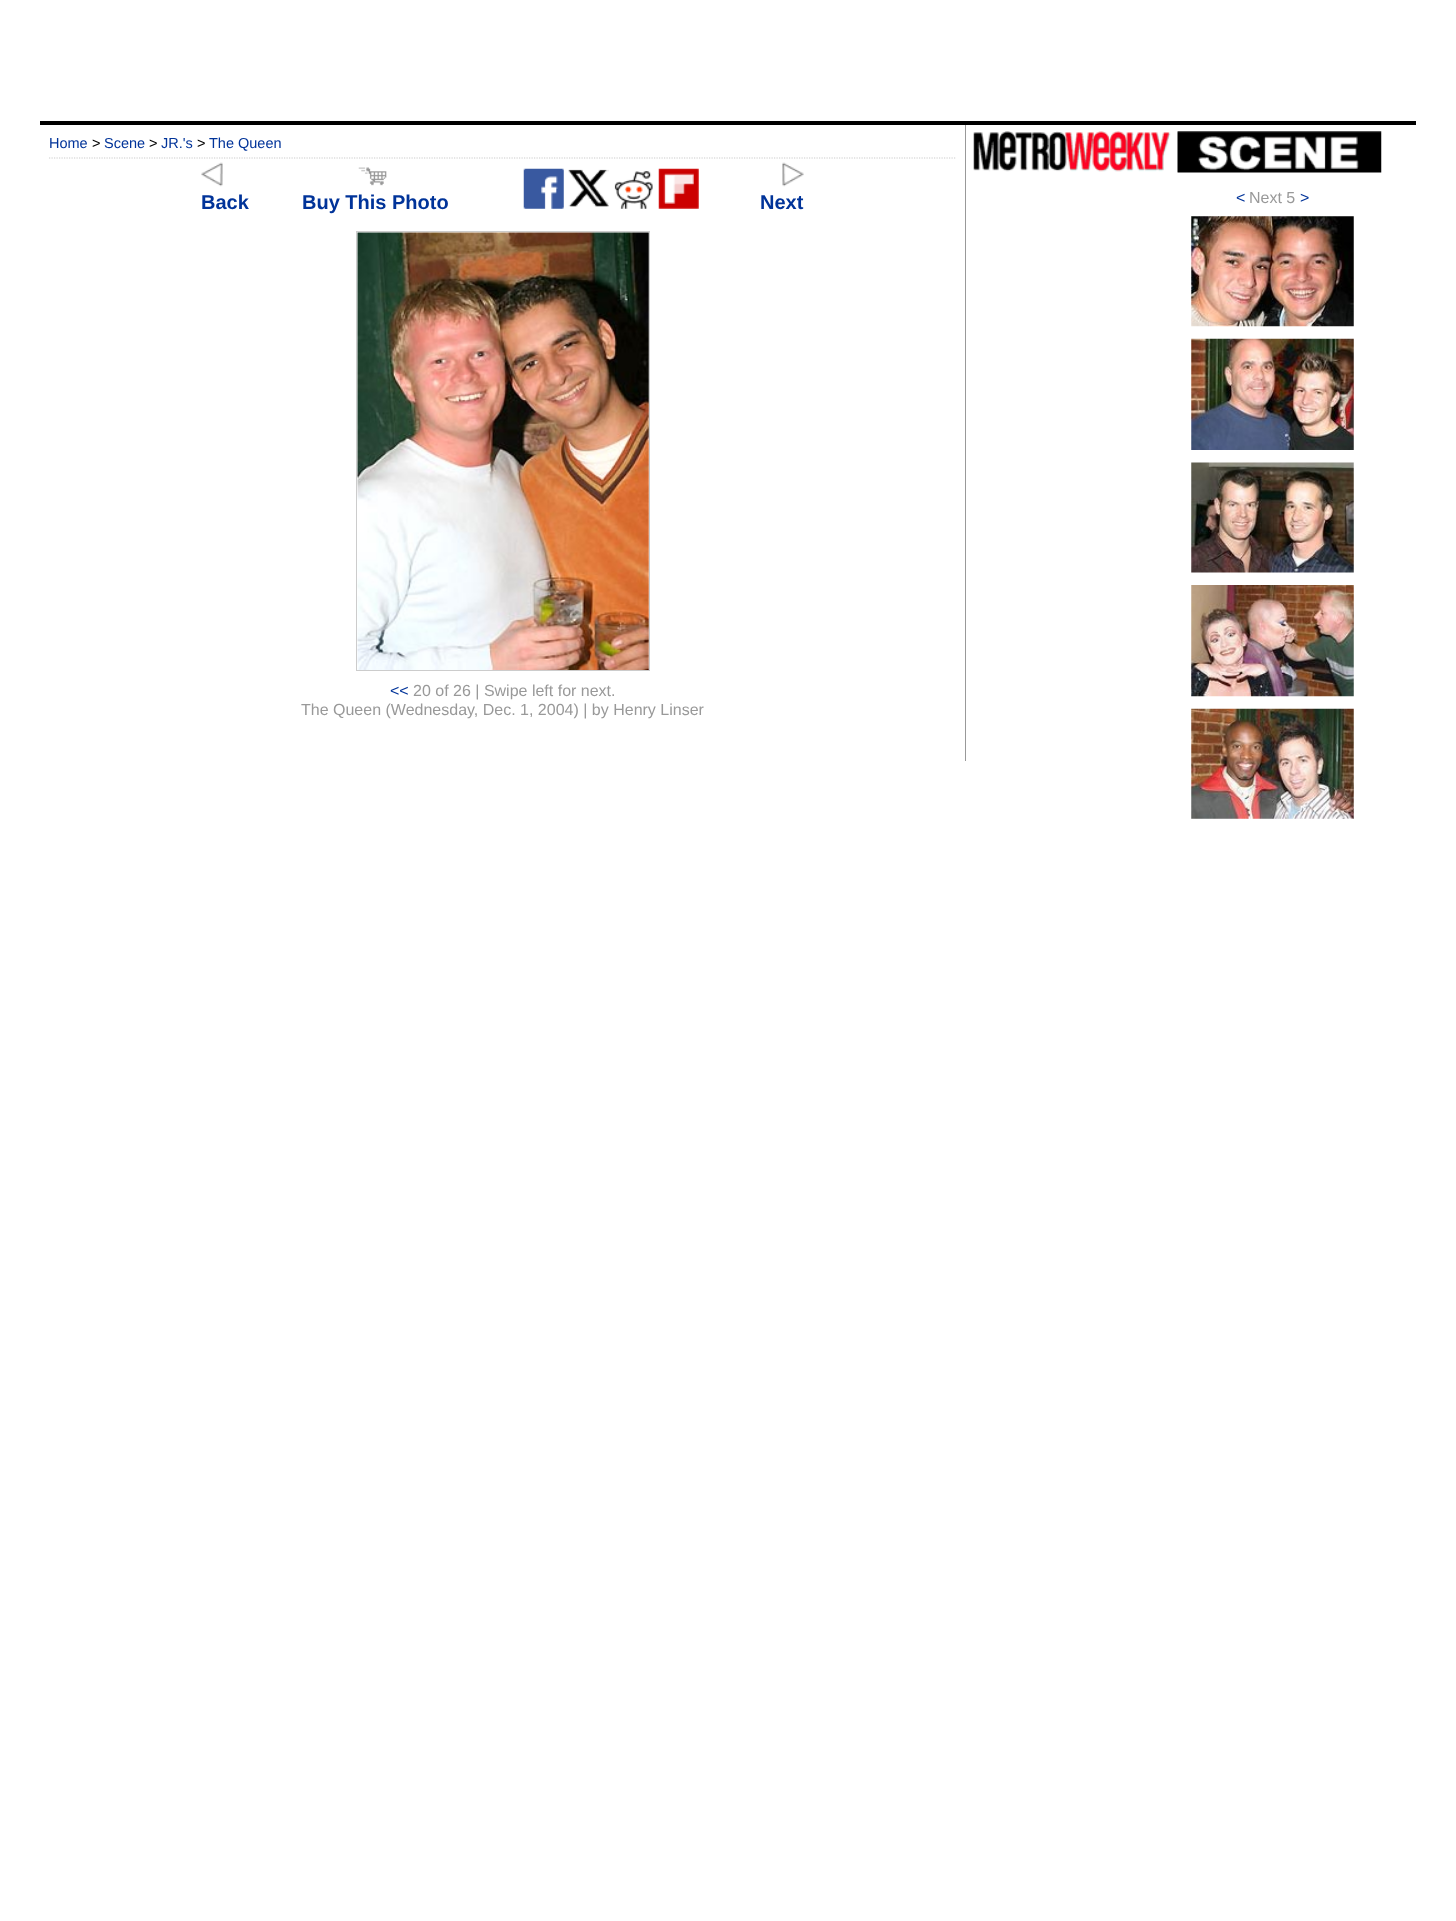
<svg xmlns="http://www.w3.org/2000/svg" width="1456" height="1921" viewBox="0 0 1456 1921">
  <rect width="100%" height="100%" fill="rgb(255,255,255)"/>
  <rect x="40" y="121" width="1376" height="4" fill="rgb(0,0,0)"/>
  <rect x="965" y="125" width="1" height="636" fill="rgb(153,153,153)"/>
  <path d="M49 158H956" fill="none" stroke="rgb(204,204,204)" stroke-width="1.2" stroke-dasharray="1.25 1.25"/>
  <text x="49" y="148" font-family="Liberation Sans" font-size="14.5" fill="rgb(0,51,153)">Home</text>
  <text x="92" y="148" font-family="Liberation Sans" font-size="14.5" fill="rgb(0,0,0)">&gt;</text>
  <text x="104" y="148" font-family="Liberation Sans" font-size="14.5" fill="rgb(0,51,153)">Scene</text>
  <text x="149" y="148" font-family="Liberation Sans" font-size="14.5" fill="rgb(0,0,0)">&gt;</text>
  <text x="161" y="148" font-family="Liberation Sans" font-size="14.5" fill="rgb(0,51,153)">JR.'s</text>
  <text x="197" y="148" font-family="Liberation Sans" font-size="14.5" fill="rgb(0,0,0)">&gt;</text>
  <text x="209" y="148" font-family="Liberation Sans" font-size="14.5" fill="rgb(0,51,153)">The Queen</text>
  <image x="201" y="162" width="22" height="25" href="pic1.png"/>
  <text x="201" y="209" font-family="Liberation Sans" font-size="20" font-weight="bold" fill="rgb(0,51,153)">Back</text>
  <image x="358" y="167" width="29" height="19" href="pic2.png"/>
  <text x="302" y="209" font-family="Liberation Sans" font-size="20" font-weight="bold" fill="rgb(0,51,153)">Buy This Photo</text>
  <image x="523" y="168" width="41" height="41" href="pic3.png"/>
  <image x="568" y="169" width="41" height="38" href="pic4.png"/>
  <image x="614" y="171" width="39" height="38" href="pic5.png"/>
  <image x="658" y="168" width="41" height="41" href="pic6.png"/>
  <image x="782" y="162" width="22" height="25" href="pic7.png"/>
  <text x="760" y="209" font-family="Liberation Sans" font-size="20" font-weight="bold" fill="rgb(0,51,153)">Next</text>
  <rect x="356.5" y="231.5" width="293" height="439" fill="none" stroke="rgb(204,204,204)"/>
  <image x="357" y="232" width="292" height="438" href="pic8.png"/>
  <text x="390" y="696" font-family="Liberation Sans" font-size="16" fill="rgb(0,51,153)">&lt;&lt;</text>
  <g font-family="Liberation Sans" font-size="16" fill="rgb(153,153,153)">
    <text x="413" y="696">20 of 26 | Swipe left for next.</text>
    <text x="301" y="715">The Queen (Wednesday, Dec. 1, 2004) | by Henry Linser</text>
  </g>
  <image x="973" y="131" width="409" height="42" href="pic9.png"/>
  <text x="1236" y="203" font-family="Liberation Sans" font-size="16" fill="rgb(0,51,153)">&lt;</text>
  <text x="1249" y="203" font-family="Liberation Sans" font-size="16" fill="rgb(153,153,153)">Next 5</text>
  <text x="1300" y="203" font-family="Liberation Sans" font-size="16" fill="rgb(0,51,153)">&gt;</text>
  <image x="1191" y="216" width="163" height="111" href="pic10.png"/>
  <image x="1191" y="338" width="163" height="112" href="pic11.png"/>
  <image x="1191" y="462" width="163" height="111" href="pic12.png"/>
  <image x="1191" y="585" width="163" height="112" href="pic13.png"/>
  <image x="1191" y="708" width="163" height="111" href="pic14.png"/>
</svg>
